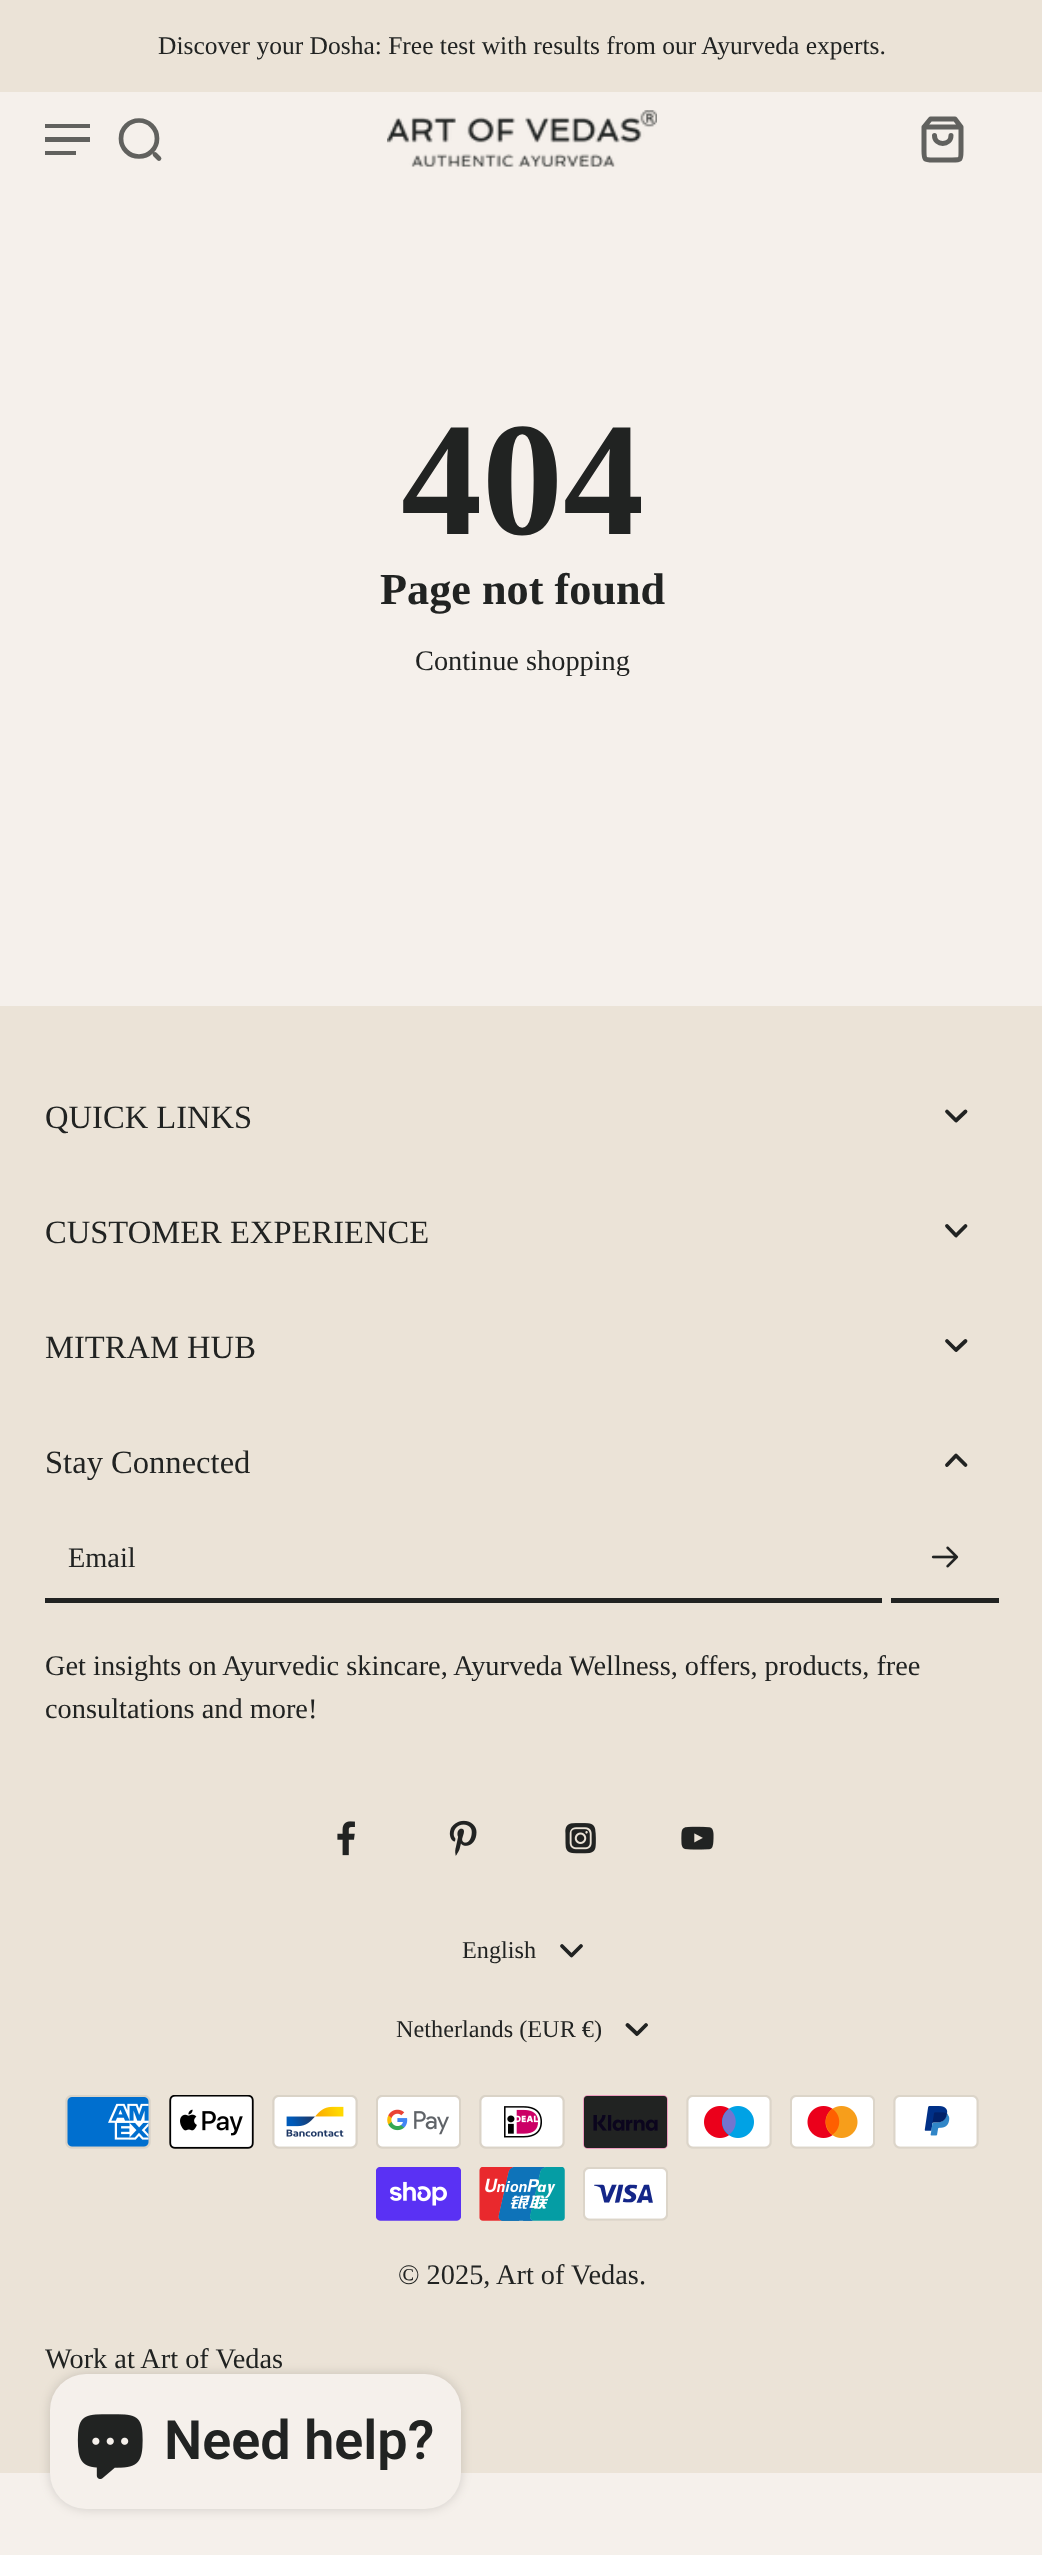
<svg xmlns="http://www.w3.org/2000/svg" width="1042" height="2555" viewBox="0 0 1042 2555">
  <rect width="100%" height="100%" fill="rgb(245,240,235)"/>
  <rect x="0" y="0" width="1042" height="92" fill="rgb(235,227,215)"/>
  <text x="158" y="54" font-family="Liberation Serif" font-size="25.5" fill="rgb(33,35,34)">Discover your Dosha: Free test with results from our Ayurveda experts.</text>
  <image x="387" y="110" width="270" height="57" href="pic1.png"/>
  <path d="M45 124V128H90V124ZM45 142H90V137H45ZM45 155H76V151H45Z" fill="rgb(97,97,94)" fill-rule="evenodd"/>
  <path d="M139 156.5C149 156.5 157 148.5 157 138.5C157 128.5 149 120.5 139 120.5C129 120.5 121 128.5 121 138.5C121 148.5 129 156.5 139 156.5ZM159 158.5L155 154.5" fill="none" stroke="rgb(97,97,94)" stroke-width="4.7" stroke-linecap="round" stroke-linejoin="round"/>
  <path d="M930.5 119L924 127V151C924 160 924.5 160 933 160H952C961 160 961 160 961 151V127L955 119ZM924 127H961M951 135.5C951 146 934.5 146 934.5 135.5" fill="none" stroke="rgb(97,97,94)" stroke-width="5" stroke-linecap="round" stroke-linejoin="round"/>
  <text x="401" y="534" font-family="Liberation Serif" font-size="162" font-weight="bold" fill="rgb(33,35,34)">404</text>
  <text x="380" y="604" font-family="Liberation Serif" font-size="44.25" font-weight="bold" fill="rgb(33,35,34)">Page not found</text>
  <text x="415" y="670" font-family="Liberation Serif" font-size="28.35" fill="rgb(33,35,34)">Continue shopping</text>
  <rect x="0" y="1006" width="1042" height="1467" fill="rgb(235,227,215)"/>
  <text x="45" y="1128" font-family="Liberation Serif" font-size="32.6" fill="rgb(33,35,34)">QUICK LINKS</text>
  <path d="M947 1111.5L956 1120.5L965.5 1111.5" fill="none" stroke="rgb(33,35,34)" stroke-width="3.8" stroke-linecap="round" stroke-linejoin="round"/>
  <text x="45" y="1243" font-family="Liberation Serif" font-size="32.6" fill="rgb(33,35,34)">CUSTOMER EXPERIENCE</text>
  <path d="M947 1226L956 1235.5L965.5 1226" fill="none" stroke="rgb(33,35,34)" stroke-width="3.8" stroke-linecap="round" stroke-linejoin="round"/>
  <text x="45" y="1358" font-family="Liberation Serif" font-size="32.6" fill="rgb(33,35,34)">MITRAM HUB</text>
  <path d="M947 1341L956 1350L965.5 1341" fill="none" stroke="rgb(33,35,34)" stroke-width="3.8" stroke-linecap="round" stroke-linejoin="round"/>
  <text x="45" y="1473" font-family="Liberation Serif" font-size="32.6" fill="rgb(33,35,34)">Stay Connected</text>
  <path d="M965.5 1465L956 1455.5L947 1465" fill="none" stroke="rgb(33,35,34)" stroke-width="3.8" stroke-linecap="round" stroke-linejoin="round"/>
  <text x="68" y="1567" font-family="Liberation Serif" font-size="28.35" fill="rgb(33,35,34)">Email</text>
  <rect x="45" y="1598" width="837" height="5" fill="rgb(33,35,34)"/>
  <rect x="891" y="1598" width="108" height="5" fill="rgb(33,35,34)"/>
  <image x="931" y="1546" width="28" height="22" href="pic2.png"/>
  <g font-family="Liberation Serif" font-size="28.35" fill="rgb(33,35,34)">
    <text>
      <tspan x="45" y="1675">Get insights on Ayurvedic skincare, Ayurveda Wellness, offers, products, free</tspan>
      <tspan x="45" y="1718">consultations and more!</tspan>
    </text>
  </g>
  <image x="337" y="1821" width="18" height="35" href="pic3.png"/>
  <image x="449" y="1820" width="28" height="36" href="pic4.png"/>
  <image x="565" y="1823" width="31" height="31" href="pic5.png"/>
  <image x="681" y="1826" width="33" height="24" href="pic6.png"/>
  <text x="462" y="1958" font-family="Liberation Serif" font-size="24.25" fill="rgb(33,35,34)">English</text>
  <path d="M562 1946L571.5 1955.5L581 1946" fill="none" stroke="rgb(33,35,34)" stroke-width="3.8" stroke-linecap="round" stroke-linejoin="round"/>
  <text x="396" y="2037" font-family="Liberation Serif" font-size="24.25" fill="rgb(33,35,34)">Netherlands (EUR €)</text>
  <path d="M627.5 2025L637 2034L646 2025" fill="none" stroke="rgb(33,35,34)" stroke-width="3.8" stroke-linecap="round" stroke-linejoin="round"/>
  <image x="65" y="2095" width="86" height="54" href="pic7.png"/>
  <image x="169" y="2095" width="85" height="54" href="pic8.png"/>
  <image x="272" y="2095" width="86" height="54" href="pic9.png"/>
  <image x="376" y="2095" width="85" height="54" href="pic10.png"/>
  <image x="479" y="2095" width="86" height="54" href="pic11.png"/>
  <image x="583" y="2095" width="85" height="54" href="pic12.png"/>
  <image x="686" y="2095" width="86" height="54" href="pic13.png"/>
  <image x="790" y="2095" width="85" height="54" href="pic14.png"/>
  <image x="893" y="2095" width="86" height="54" href="pic15.png"/>
  <image x="376" y="2167" width="85" height="54" href="pic16.png"/>
  <image x="479" y="2167" width="86" height="54" href="pic17.png"/>
  <image x="583" y="2167" width="85" height="54" href="pic18.png"/>
  <g font-family="Liberation Serif" font-size="28.35" fill="rgb(33,35,34)">
    <text x="398" y="2284">© 2025,</text>
    <text x="496" y="2284">Art of Vedas</text>
    <text x="639" y="2284">.</text>
    <text x="45" y="2368">Work at Art of Vedas</text>
  </g>
  <rect x="50" y="2374" width="411" height="135" rx="36" fill="rgba(0,0,0,0.15)" filter="blur(5.5px)"/>
  <rect x="50" y="2374" width="411" height="135" rx="36" fill="rgb(245,240,235)"/>
  <image x="77" y="2414" width="66" height="65" href="pic19.png"/>
  <text x="164" y="2459" font-family="Roboto" font-size="54" font-weight="600" fill="rgb(33,35,34)">Need help?</text>
</svg>
